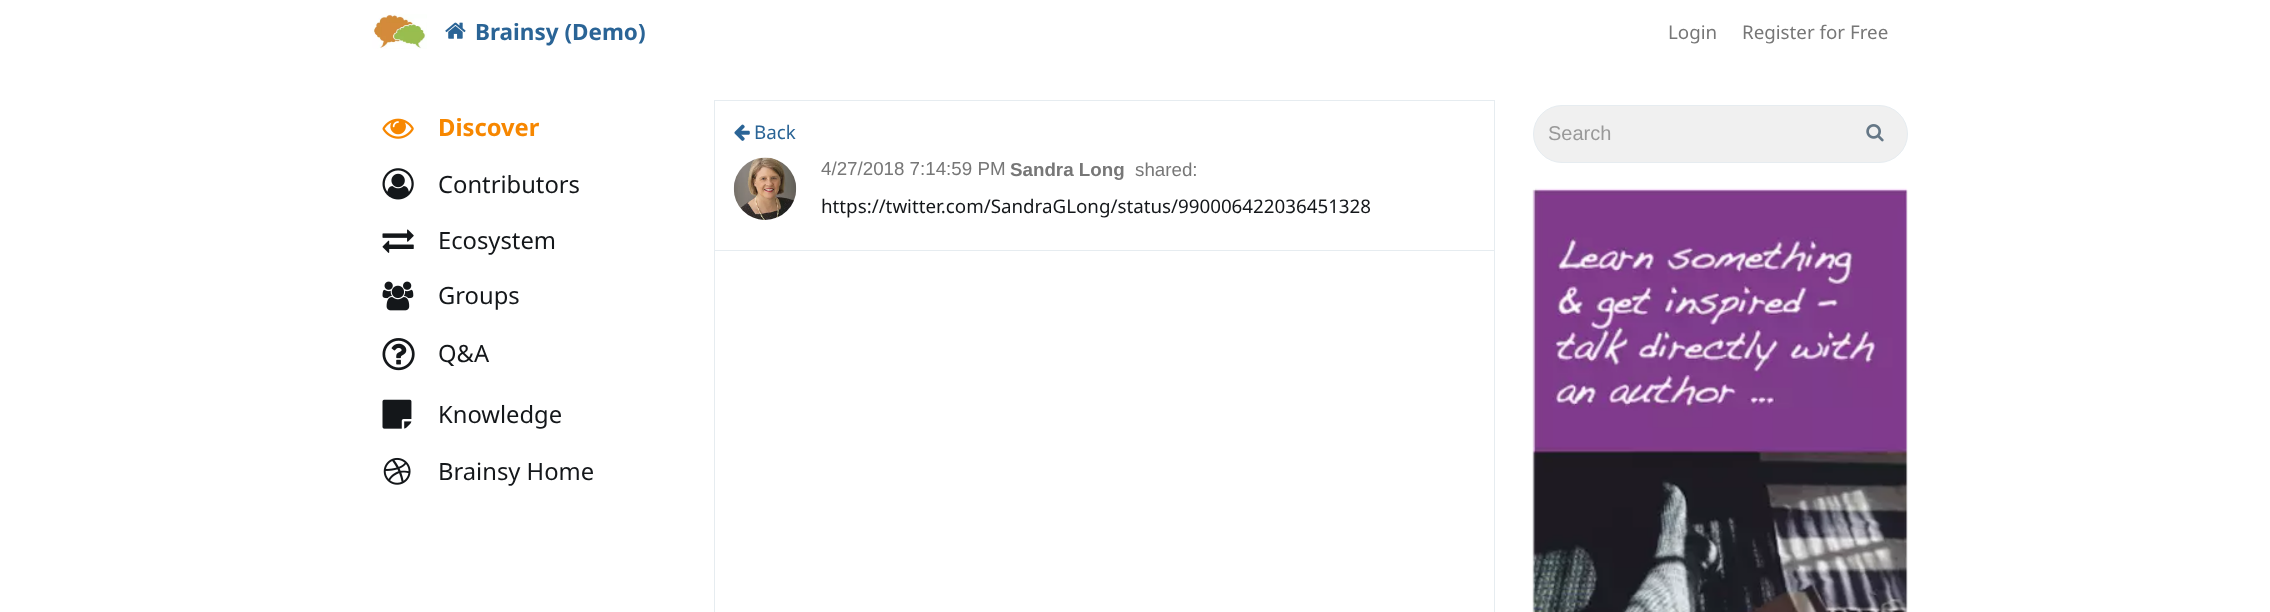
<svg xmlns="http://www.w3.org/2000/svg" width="2270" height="612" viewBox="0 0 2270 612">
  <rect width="100%" height="100%" fill="rgb(255,255,255)"/>
  <image x="372" y="14" width="55" height="35" href="pic1.png"/>
  <image x="445" y="22" width="21" height="17" href="pic2.png"/>
  <text x="475" y="40" font-family="Noto Sans" font-size="22.5" font-weight="bold" fill="rgb(42,100,150)">Brainsy (Demo)</text>
  <g font-family="Noto Sans" font-size="18.75" fill="rgb(119,119,119)">
    <text x="1668" y="39">Login</text>
    <text x="1742" y="39">Register for Free</text>
  </g>
  <image x="382" y="118" width="32" height="21" href="pic3.png"/>
  <text x="438" y="136" font-family="Noto Sans" font-size="23.75" font-weight="bold" fill="rgb(247,135,0)">Discover</text>
  <image x="382" y="168" width="32" height="32" href="pic4.png"/>
  <text x="438" y="193" font-family="Noto Sans" font-size="23.75" fill="rgb(20,23,26)">Contributors</text>
  <image x="382" y="229" width="32" height="24" href="pic5.png"/>
  <text x="438" y="249" font-family="Noto Sans" font-size="23.75" fill="rgb(20,23,26)">Ecosystem</text>
  <image x="382" y="281" width="32" height="30" href="pic6.png"/>
  <text x="438" y="304" font-family="Noto Sans" font-size="23.75" fill="rgb(20,23,26)">Groups</text>
  <image x="382" y="338" width="33" height="33" href="pic7.png"/>
  <text x="438" y="362" font-family="Noto Sans" font-size="23.75" fill="rgb(20,23,26)">Q&amp;A</text>
  <image x="382" y="399" width="30" height="30" href="pic8.png"/>
  <text x="438" y="423" font-family="Noto Sans" font-size="23.75" fill="rgb(20,23,26)">Knowledge</text>
  <image x="383" y="457" width="28" height="28" href="pic9.png"/>
  <text x="438" y="480" font-family="Noto Sans" font-size="23.75" fill="rgb(20,23,26)">Brainsy Home</text>
  <rect x="714" y="100" width="781" height="1" fill="rgb(230,236,240)"/>
  <rect x="1494" y="100" width="1" height="512" fill="rgb(230,236,240)"/>
  <rect x="714" y="100" width="1" height="512" fill="rgb(230,236,240)"/>
  <rect x="715" y="250" width="779" height="1" fill="rgb(230,236,240)"/>
  <image x="734" y="124" width="16" height="17" href="pic10.png"/>
  <text x="754" y="139" font-family="Noto Sans" font-size="18.75" fill="rgb(42,100,150)">Back</text>
  <image x="733" y="157" width="64" height="63" href="pic11.png"/>
  <text x="821" y="175" font-family="Liberation Sans" font-size="18.75" fill="rgb(119,119,119)">4/27/2018 7:14:59 PM</text>
  <text x="1010" y="176" font-family="Liberation Sans" font-size="18.75" font-weight="bold" fill="rgb(119,119,119)">Sandra Long</text>
  <text x="1135" y="176" font-family="Liberation Sans" font-size="18.75" fill="rgb(119,119,119)">shared:</text>
  <text x="821" y="213" font-family="Noto Sans" font-size="18.75" fill="rgb(20,23,26)">https://twitter.com/SandraGLong/status/990006422036451328</text>
  <rect x="1533.5" y="105.5" width="374" height="57" rx="28.5" fill="rgb(240,240,240)" stroke="rgb(230,236,240)"/>
  <text x="1548" y="140" font-family="Liberation Sans" font-size="20" fill="rgb(153,153,153)">Search</text>
  <image x="1866" y="124" width="18" height="18" href="pic12.png"/>
  <image x="1532" y="188" width="376" height="424" href="pic13.png"/>
</svg>
